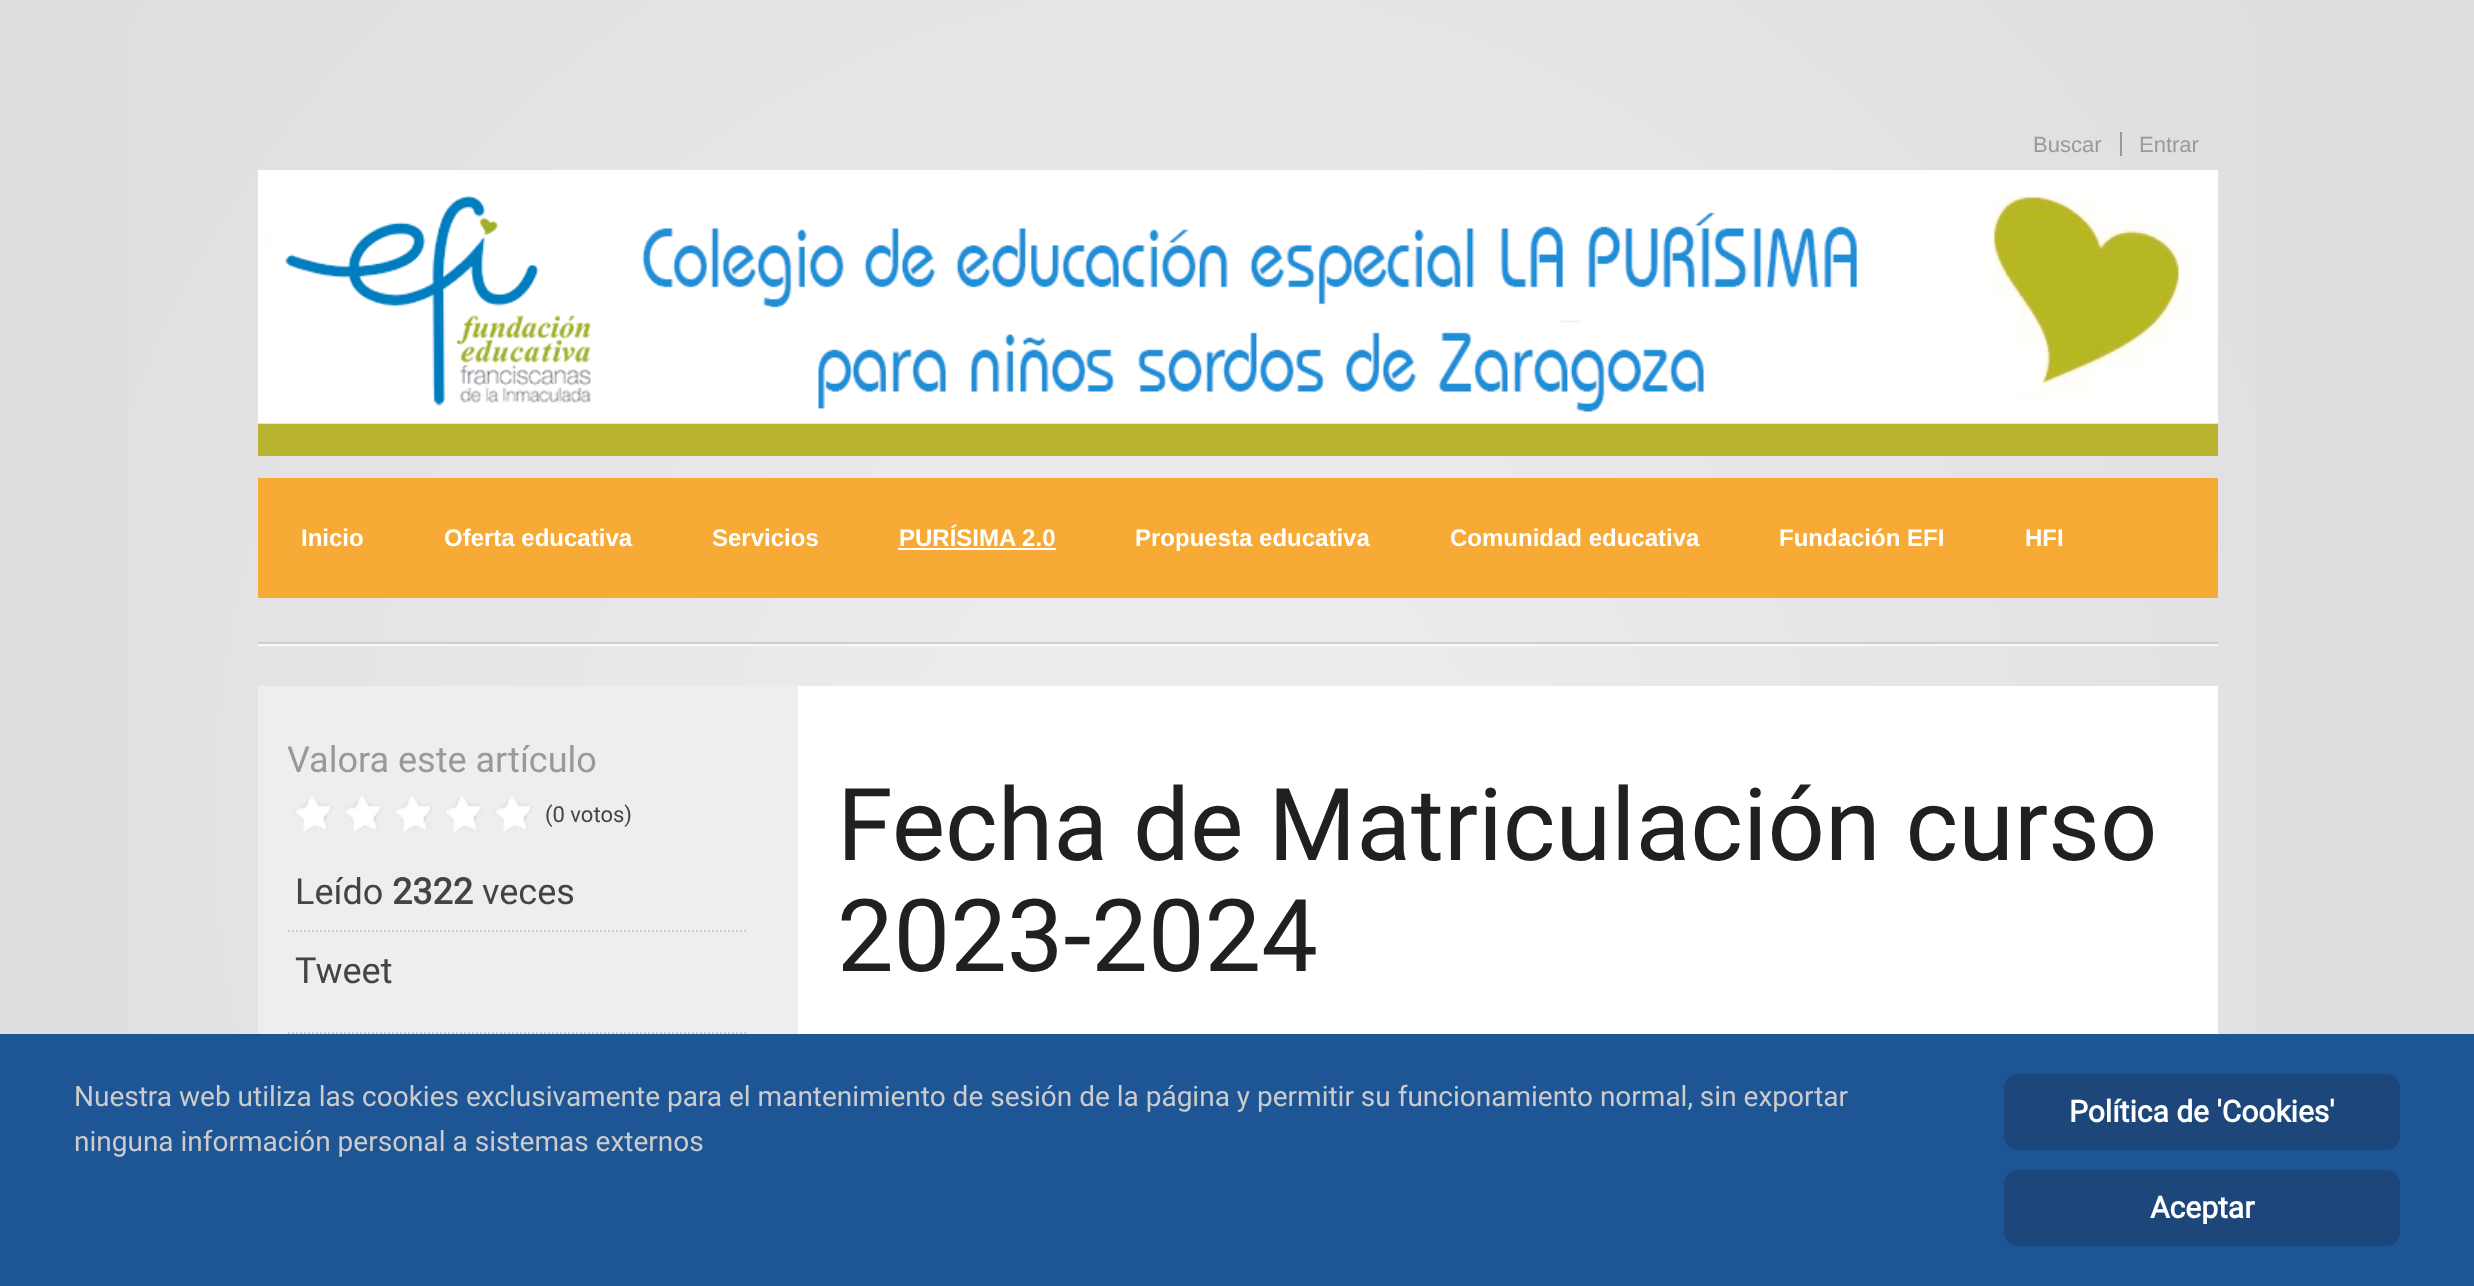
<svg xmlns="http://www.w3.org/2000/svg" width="2474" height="1286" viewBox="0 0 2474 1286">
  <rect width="100%" height="100%" fill="rgb(221,221,221)"/>
  <image x="128" y="0" width="2128" height="1034" href="pic1.png"/>
  <text x="2033" y="152" font-family="Liberation Sans" font-size="22" fill="rgb(153,153,153)">Buscar</text>
  <rect x="2120" y="132" width="2" height="24" fill="rgb(153,153,153)"/>
  <text x="2139" y="152" font-family="Liberation Sans" font-size="22" fill="rgb(153,153,153)">Entrar</text>
  <image x="258" y="642" width="1960" height="4" href="pic2.png"/>
  <image x="258" y="170" width="1960" height="286" href="pic3.png"/>
  <rect x="258" y="478" width="1960" height="120" fill="rgb(247,170,54)"/>
  <g font-family="Liberation Sans" font-size="24" font-weight="bold" fill="rgb(255,255,255)">
    <text x="301" y="546">Inicio</text>
    <text x="444" y="546">Oferta educativa</text>
    <text x="712" y="546">Servicios</text>
    <text x="899" y="546">PURÍSIMA 2.0</text>
  </g>
  <rect x="898" y="548" width="158" height="2" fill="rgb(255,255,255)"/>
  <g font-family="Liberation Sans" font-size="24" font-weight="bold" fill="rgb(255,255,255)">
    <text x="1135" y="546">Propuesta educativa</text>
    <text x="1450" y="546">Comunidad educativa</text>
    <text x="1779" y="546">Fundación EFI</text>
    <text x="2025" y="546">HFI</text>
  </g>
  <rect x="798" y="686" width="1420" height="348" fill="rgb(255,255,255)"/>
  <rect x="258" y="686" width="540" height="348" fill="rgb(238,238,238)"/>
  <text x="287" y="772" font-family="Roboto" font-size="36" fill="rgb(153,153,153)">Valora este artículo</text>
  <image x="294" y="796" width="238" height="36" href="pic4.png"/>
  <text x="545" y="822" font-family="Roboto" font-size="22" fill="rgb(68,68,68)">(0 votos)</text>
  <path d="M288 931H748" fill="none" stroke="rgb(204,204,204)" stroke-width="2" stroke-dasharray="2 2"/>
  <text x="295" y="904" font-family="Roboto" font-size="36" fill="rgb(68,68,68)">Leído</text>
  <text x="392" y="904" font-family="Roboto" font-size="36" font-weight="bold" fill="rgb(68,68,68)">2322</text>
  <text x="482" y="904" font-family="Roboto" font-size="36" fill="rgb(68,68,68)">veces</text>
  <path d="M288 1033H748" fill="none" stroke="rgb(204,204,204)" stroke-width="2" stroke-dasharray="2 2"/>
  <text x="295" y="983" font-family="Roboto" font-size="36" fill="rgb(68,68,68)">Tweet</text>
  <g font-family="Roboto" font-size="100.75" fill="rgb(32,32,32)">
    <text>
      <tspan x="837" y="860">Fecha de Matriculación curso</tspan>
      <tspan x="837" y="971">2023-2024</tspan>
    </text>
  </g>
  <rect x="0" y="1034" width="2474" height="252" fill="rgb(30,86,149)"/>
  <g font-family="Roboto" font-size="28" fill="rgb(204,204,204)">
    <text>
      <tspan x="74" y="1106">Nuestra web utiliza las cookies exclusivamente para el mantenimiento de sesión de la página y permitir su funcionamiento normal, sin exportar</tspan>
      <tspan x="74" y="1151">ninguna información personal a sistemas externos</tspan>
    </text>
  </g>
  <rect x="2004" y="1074" width="396" height="76" rx="14" fill="rgb(29,70,122)"/>
  <text x="2069" y="1122" font-family="Roboto" font-size="30" font-weight="bold" fill="rgb(255,255,255)">Política de 'Cookies'</text>
  <rect x="2004" y="1170" width="396" height="76" rx="14" fill="rgb(29,70,122)"/>
  <text x="2150" y="1218" font-family="Roboto" font-size="30" font-weight="bold" fill="rgb(255,255,255)">Aceptar</text>
</svg>
